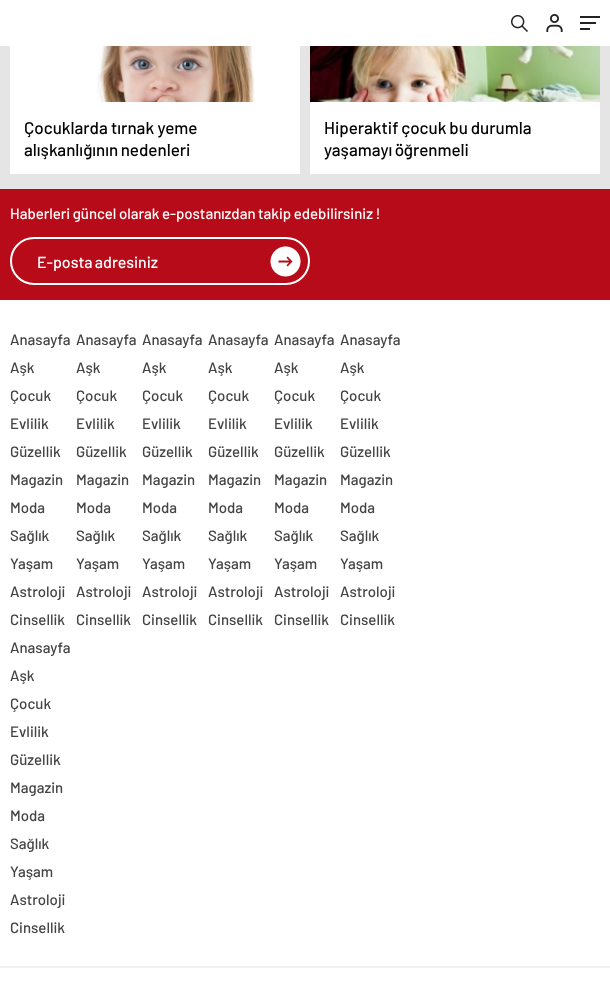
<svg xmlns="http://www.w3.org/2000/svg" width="610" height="999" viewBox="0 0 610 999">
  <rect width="100%" height="100%" fill="rgb(229,229,229)"/>
  <rect x="0" y="0" width="610" height="46" fill="rgb(255,255,255)"/>
  <image x="511" y="15" width="17" height="17" href="pic1.png"/>
  <image x="546" y="14" width="17" height="18" href="pic2.png"/>
  <rect x="580" y="16" width="20" height="2" fill="rgb(34,34,34)"/>
  <rect x="580" y="22" width="16" height="2" fill="rgb(34,34,34)"/>
  <rect x="580" y="28" width="10" height="2" fill="rgb(34,34,34)"/>
  <rect x="10" y="46" width="290" height="128" fill="rgb(255,255,255)"/>
  <image x="97" y="46" width="158" height="56" href="pic3.png"/>
  <g font-family="Barlow" font-size="17" font-weight="500" fill="rgb(1,1,1)">
    <text>
      <tspan x="24" y="134">Çocuklarda tırnak yeme</tspan>
      <tspan x="24" y="156" word-spacing="-1">alışkanlığının nedenleri</tspan>
    </text>
  </g>
  <rect x="310" y="102" width="290" height="72" fill="rgb(255,255,255)"/>
  <image x="310" y="46" width="290" height="56" href="pic4.png"/>
  <g font-family="Barlow" font-size="17" font-weight="500" fill="rgb(1,1,1)">
    <text>
      <tspan x="324" y="134" word-spacing="-0.5">Hiperaktif çocuk bu durumla</tspan>
      <tspan x="324" y="156" word-spacing="-1">yaşamayı öğrenmeli</tspan>
    </text>
  </g>
  <rect x="0" y="300" width="610" height="699" fill="rgb(255,255,255)"/>
  <rect x="0" y="189" width="610" height="111" fill="rgb(183,11,25)"/>
  <text x="10" y="219" word-spacing="-0.5" font-family="Barlow" font-size="15" font-weight="500" fill="rgb(255,255,255)">Haberleri güncel olarak e-postanızdan takip edebilirsiniz !</text>
  <rect x="11" y="238" width="298" height="46" rx="23" fill="none" stroke="rgb(255,255,255)" stroke-width="2"/>
  <text x="37" y="268" word-spacing="-1" font-family="Barlow" font-size="16" font-weight="500" fill="rgb(255,255,255)">E-posta adresiniz</text>
  <image x="270" y="246" width="31" height="31" href="pic5.png"/>
  <g font-family="Barlow" font-size="15" font-weight="500" fill="rgb(68,67,67)">
    <text>
      <tspan x="10" y="345">Anasayfa</tspan>
      <tspan x="10" y="373">Aşk</tspan>
      <tspan x="10" y="401">Çocuk</tspan>
      <tspan x="10" y="429">Evlilik</tspan>
      <tspan x="10" y="457">Güzellik</tspan>
      <tspan x="10" y="485">Magazin</tspan>
      <tspan x="10" y="513">Moda</tspan>
      <tspan x="10" y="541">Sağlık</tspan>
      <tspan x="10" y="569">Yaşam</tspan>
      <tspan x="10" y="597">Astroloji</tspan>
      <tspan x="10" y="625">Cinsellik</tspan>
    </text>
    <text>
      <tspan x="76" y="345">Anasayfa</tspan>
      <tspan x="76" y="373">Aşk</tspan>
      <tspan x="76" y="401">Çocuk</tspan>
      <tspan x="76" y="429">Evlilik</tspan>
      <tspan x="76" y="457">Güzellik</tspan>
      <tspan x="76" y="485">Magazin</tspan>
      <tspan x="76" y="513">Moda</tspan>
      <tspan x="76" y="541">Sağlık</tspan>
      <tspan x="76" y="569">Yaşam</tspan>
      <tspan x="76" y="597">Astroloji</tspan>
      <tspan x="76" y="625">Cinsellik</tspan>
    </text>
    <text>
      <tspan x="142" y="345">Anasayfa</tspan>
      <tspan x="142" y="373">Aşk</tspan>
      <tspan x="142" y="401">Çocuk</tspan>
      <tspan x="142" y="429">Evlilik</tspan>
      <tspan x="142" y="457">Güzellik</tspan>
      <tspan x="142" y="485">Magazin</tspan>
      <tspan x="142" y="513">Moda</tspan>
      <tspan x="142" y="541">Sağlık</tspan>
      <tspan x="142" y="569">Yaşam</tspan>
      <tspan x="142" y="597">Astroloji</tspan>
      <tspan x="142" y="625">Cinsellik</tspan>
    </text>
    <text>
      <tspan x="208" y="345">Anasayfa</tspan>
      <tspan x="208" y="373">Aşk</tspan>
      <tspan x="208" y="401">Çocuk</tspan>
      <tspan x="208" y="429">Evlilik</tspan>
      <tspan x="208" y="457">Güzellik</tspan>
      <tspan x="208" y="485">Magazin</tspan>
      <tspan x="208" y="513">Moda</tspan>
      <tspan x="208" y="541">Sağlık</tspan>
      <tspan x="208" y="569">Yaşam</tspan>
      <tspan x="208" y="597">Astroloji</tspan>
      <tspan x="208" y="625">Cinsellik</tspan>
    </text>
    <text>
      <tspan x="274" y="345">Anasayfa</tspan>
      <tspan x="274" y="373">Aşk</tspan>
      <tspan x="274" y="401">Çocuk</tspan>
      <tspan x="274" y="429">Evlilik</tspan>
      <tspan x="274" y="457">Güzellik</tspan>
      <tspan x="274" y="485">Magazin</tspan>
      <tspan x="274" y="513">Moda</tspan>
      <tspan x="274" y="541">Sağlık</tspan>
      <tspan x="274" y="569">Yaşam</tspan>
      <tspan x="274" y="597">Astroloji</tspan>
      <tspan x="274" y="625">Cinsellik</tspan>
    </text>
    <text>
      <tspan x="340" y="345">Anasayfa</tspan>
      <tspan x="340" y="373">Aşk</tspan>
      <tspan x="340" y="401">Çocuk</tspan>
      <tspan x="340" y="429">Evlilik</tspan>
      <tspan x="340" y="457">Güzellik</tspan>
      <tspan x="340" y="485">Magazin</tspan>
      <tspan x="340" y="513">Moda</tspan>
      <tspan x="340" y="541">Sağlık</tspan>
      <tspan x="340" y="569">Yaşam</tspan>
      <tspan x="340" y="597">Astroloji</tspan>
      <tspan x="340" y="625">Cinsellik</tspan>
    </text>
    <text>
      <tspan x="10" y="653">Anasayfa</tspan>
      <tspan x="10" y="681">Aşk</tspan>
      <tspan x="10" y="709">Çocuk</tspan>
      <tspan x="10" y="737">Evlilik</tspan>
      <tspan x="10" y="765">Güzellik</tspan>
      <tspan x="10" y="793">Magazin</tspan>
      <tspan x="10" y="821">Moda</tspan>
      <tspan x="10" y="849">Sağlık</tspan>
      <tspan x="10" y="877">Yaşam</tspan>
      <tspan x="10" y="905">Astroloji</tspan>
      <tspan x="10" y="933">Cinsellik</tspan>
    </text>
  </g>
  <rect x="0" y="966" width="610" height="2" fill="rgb(241,241,241)"/>
</svg>
